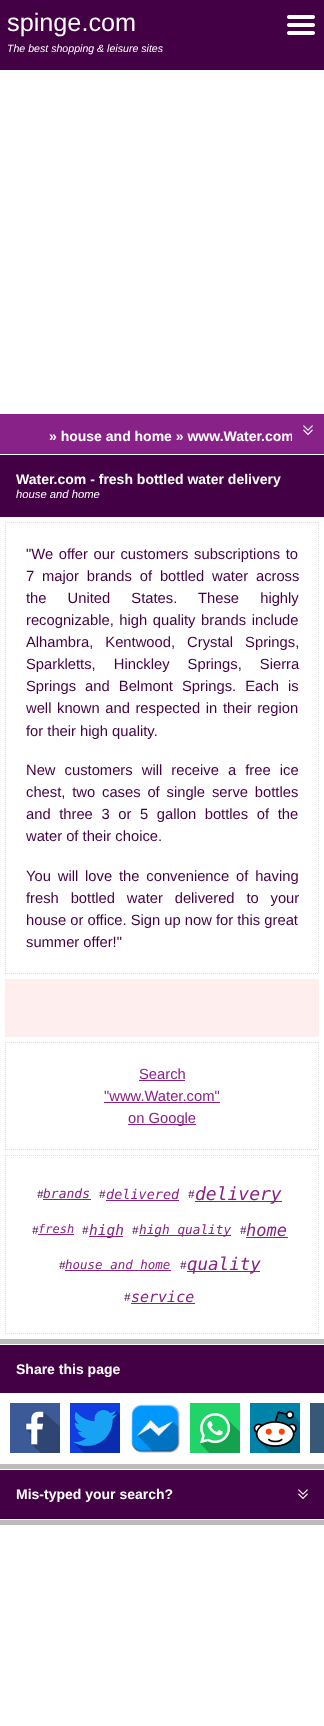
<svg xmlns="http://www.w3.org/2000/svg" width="324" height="1726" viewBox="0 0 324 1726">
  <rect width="100%" height="100%" fill="rgb(255,255,255)"/>
  <rect x="0" y="0" width="324" height="70" fill="rgb(68,0,68)"/>
  <text x="7" y="31" font-family="Liberation Sans" font-size="25.25" fill="rgb(255,255,255)">spinge.com</text>
  <image x="287" y="15" width="28" height="20" href="pic1.png"/>
  <text x="7" y="52" font-family="Liberation Sans" font-size="10.6" font-style="italic" fill="rgb(255,255,255)">The best shopping &amp; leisure sites</text>
  <rect x="0" y="414" width="324" height="40" fill="rgb(136,34,136)"/>
  <text x="49" y="441" font-family="Liberation Sans" font-size="14" font-weight="bold" fill="rgb(255,255,255)">» house and home » www.Water.com</text>
  <rect x="292" y="434" width="1" height="7" fill="rgb(136,34,136)"/>
  <image x="303" y="425" width="10" height="10" href="pic2.png"/>
  <rect x="0" y="455" width="324" height="62" fill="rgb(68,0,68)"/>
  <text x="16" y="484" font-family="Liberation Sans" font-size="14" font-weight="bold" fill="rgb(255,255,255)">Water.com - fresh bottled water delivery</text>
  <text x="16" y="498" font-family="Liberation Sans" font-size="11.25" font-style="italic" fill="rgb(255,255,255)">house and home</text>
  <path d="M5 522.5H319" fill="none" stroke="rgb(221,221,221)" stroke-dasharray="1 1"/>
  <path d="M318.5 522V974" fill="none" stroke="rgb(221,221,221)" stroke-dasharray="1 1"/>
  <path d="M5 973.5H319" fill="none" stroke="rgb(221,221,221)" stroke-dasharray="1 1"/>
  <path d="M5.5 522V974" fill="none" stroke="rgb(221,221,221)" stroke-dasharray="1 1"/>
  <g font-family="Liberation Sans" font-size="14.75" fill="rgb(68,0,68)">
    <text>
      <tspan x="26" y="559" word-spacing="1.5">"We offer our customers subscriptions to</tspan>
      <tspan x="26" y="581" word-spacing="3.75">7 major brands of bottled water across</tspan>
      <tspan x="26" y="603" word-spacing="17">the United States. These highly</tspan>
      <tspan x="26" y="625" word-spacing="1.5">recognizable, high quality brands include</tspan>
      <tspan x="26" y="647" word-spacing="8">Alhambra, Kentwood, Crystal Springs,</tspan>
      <tspan x="26" y="669" word-spacing="14">Sparkletts, Hinckley Springs, Sierra</tspan>
      <tspan x="26" y="691" word-spacing="5">Springs and Belmont Springs. Each is</tspan>
      <tspan x="26" y="713" word-spacing="1.5">well known and respected in their region</tspan>
      <tspan x="26" y="736">for their high quality.</tspan>
    </text>
    <text>
      <tspan x="26" y="775" word-spacing="5">New customers will receive a free ice</tspan>
      <tspan x="26" y="797" word-spacing="2.75">chest, two cases of single serve bottles</tspan>
      <tspan x="26" y="819" word-spacing="4.5">and three 3 or 5 gallon bottles of the</tspan>
      <tspan x="26" y="841">water of their choice.</tspan>
    </text>
    <text>
      <tspan x="26" y="881" word-spacing="2.75">You will love the convenience of having</tspan>
      <tspan x="26" y="903" word-spacing="7.75">fresh bottled water delivered to your</tspan>
      <tspan x="26" y="925">house or office. Sign up now for this great</tspan>
      <tspan x="26" y="947">summer offer!"</tspan>
    </text>
  </g>
  <rect x="5" y="979" width="314" height="58" fill="rgb(255,238,238)"/>
  <path d="M5 1042.5H319" fill="none" stroke="rgb(221,221,221)" stroke-dasharray="1 1"/>
  <path d="M318.5 1042V1150" fill="none" stroke="rgb(221,221,221)" stroke-dasharray="1 1"/>
  <path d="M5 1149.5H319" fill="none" stroke="rgb(221,221,221)" stroke-dasharray="1 1"/>
  <path d="M5.5 1042V1150" fill="none" stroke="rgb(221,221,221)" stroke-dasharray="1 1"/>
  <text x="139" y="1079" font-family="Liberation Sans" font-size="14.75" fill="rgb(136,34,136)">Search</text>
  <rect x="139" y="1080" width="46" height="1" fill="rgb(136,34,136)"/>
  <text x="104" y="1101" font-family="Liberation Sans" font-size="14.75" fill="rgb(136,34,136)">"www.Water.com"</text>
  <rect x="104" y="1102" width="116" height="1" fill="rgb(136,34,136)"/>
  <rect x="128" y="1124" width="68" height="1" fill="rgb(136,34,136)"/>
  <text x="128" y="1123" font-family="Liberation Sans" font-size="14.75" fill="rgb(136,34,136)">on Google</text>
  <path d="M5 1155.5H319" fill="none" stroke="rgb(221,221,221)" stroke-dasharray="1 1"/>
  <path d="M318.5 1155V1334" fill="none" stroke="rgb(221,221,221)" stroke-dasharray="1 1"/>
  <path d="M5 1333.5H319" fill="none" stroke="rgb(221,221,221)" stroke-dasharray="1 1"/>
  <path d="M5.5 1155V1334" fill="none" stroke="rgb(221,221,221)" stroke-dasharray="1 1"/>
  <text x="37" y="1198" font-family="Liberation Sans" font-size="11.25" font-style="italic" fill="rgb(68,0,68)">#</text>
  <text x="43" y="1198" font-family="DejaVu Sans Mono" font-size="13" font-style="italic" fill="rgb(136,34,136)">brands</text>
  <rect x="43" y="1199" width="48" height="1" fill="rgb(136,34,136)"/>
  <text x="99" y="1198" font-family="Liberation Sans" font-size="11.25" font-style="italic" fill="rgb(68,0,68)">#</text>
  <text x="106" y="1199" font-family="DejaVu Sans Mono" font-size="13.5" font-style="italic" fill="rgb(136,34,136)">delivered</text>
  <rect x="106" y="1200" width="73" height="1" fill="rgb(136,34,136)"/>
  <text x="188" y="1198" font-family="Liberation Sans" font-size="11.25" font-style="italic" fill="rgb(68,0,68)">#</text>
  <rect x="195" y="1201" width="87" height="1" fill="rgb(136,34,136)"/>
  <text x="195" y="1200" font-family="DejaVu Sans Mono" font-size="18" font-style="italic" fill="rgb(136,34,136)">delivery</text>
  <text x="32" y="1234" font-family="Liberation Sans" font-size="11.25" font-style="italic" fill="rgb(68,0,68)">#</text>
  <text x="38" y="1233" font-family="DejaVu Sans Mono" font-size="12" font-style="italic" fill="rgb(136,34,136)">fresh</text>
  <rect x="38" y="1234" width="36" height="1" fill="rgb(136,34,136)"/>
  <text x="82" y="1234" font-family="Liberation Sans" font-size="11.25" font-style="italic" fill="rgb(68,0,68)">#</text>
  <rect x="89" y="1236" width="34" height="1" fill="rgb(136,34,136)"/>
  <text x="89" y="1235" font-family="DejaVu Sans Mono" font-size="14.5" font-style="italic" fill="rgb(136,34,136)">high</text>
  <text x="132" y="1234" font-family="Liberation Sans" font-size="11.25" font-style="italic" fill="rgb(68,0,68)">#</text>
  <rect x="139" y="1235" width="92" height="1" fill="rgb(136,34,136)"/>
  <text x="139" y="1234" font-family="DejaVu Sans Mono" font-size="12.75" font-style="italic" fill="rgb(136,34,136)">high quality</text>
  <text x="240" y="1234" font-family="Liberation Sans" font-size="11.25" font-style="italic" fill="rgb(68,0,68)">#</text>
  <text x="246" y="1236" font-family="DejaVu Sans Mono" font-size="17" font-style="italic" fill="rgb(136,34,136)">home</text>
  <rect x="246" y="1237" width="42" height="1" fill="rgb(136,34,136)"/>
  <text x="59" y="1269" font-family="Liberation Sans" font-size="11.25" font-style="italic" fill="rgb(68,0,68)">#</text>
  <text x="65" y="1269" font-family="DejaVu Sans Mono" font-size="12.5" font-style="italic" fill="rgb(136,34,136)">house and home</text>
  <rect x="65" y="1270" width="106" height="1" fill="rgb(136,34,136)"/>
  <text x="180" y="1269" font-family="Liberation Sans" font-size="11.25" font-style="italic" fill="rgb(68,0,68)">#</text>
  <rect x="187" y="1271" width="73" height="1" fill="rgb(136,34,136)"/>
  <text x="187" y="1270" font-family="DejaVu Sans Mono" font-size="17.5" font-style="italic" fill="rgb(136,34,136)">quality</text>
  <text x="124" y="1301" font-family="Liberation Sans" font-size="11.25" font-style="italic" fill="rgb(68,0,68)">#</text>
  <text x="131" y="1302" font-family="DejaVu Sans Mono" font-size="15" font-style="italic" fill="rgb(136,34,136)">service</text>
  <rect x="131" y="1303" width="64" height="1" fill="rgb(136,34,136)"/>
  <rect x="0" y="1339" width="324" height="5" fill="rgb(187,187,187)"/>
  <rect x="0" y="1345" width="324" height="48" fill="rgb(68,0,68)"/>
  <text x="16" y="1374" font-family="Liberation Sans" font-size="14" font-weight="bold" fill="rgb(255,255,255)">Share this page</text>
  <image x="10" y="1403" width="50" height="50" href="pic3.png"/>
  <image x="70" y="1403" width="50" height="50" href="pic4.png"/>
  <image x="131" y="1404" width="49" height="49" href="pic5.png"/>
  <image x="190" y="1403" width="50" height="50" href="pic6.png"/>
  <image x="250" y="1403" width="50" height="50" href="pic7.png"/>
  <rect x="310" y="1403" width="14" height="50" fill="rgb(55,88,119)"/>
  <rect x="0" y="1464" width="324" height="5" fill="rgb(187,187,187)"/>
  <rect x="0" y="1470" width="324" height="49" fill="rgb(68,0,68)"/>
  <text x="16" y="1499" font-family="Liberation Sans" font-size="14" font-weight="bold" fill="rgb(255,255,255)">Mis-typed your search?</text>
  <image x="298" y="1489" width="10" height="10" href="pic8.png"/>
  <rect x="0" y="1520" width="324" height="5" fill="rgb(187,187,187)"/>
</svg>
